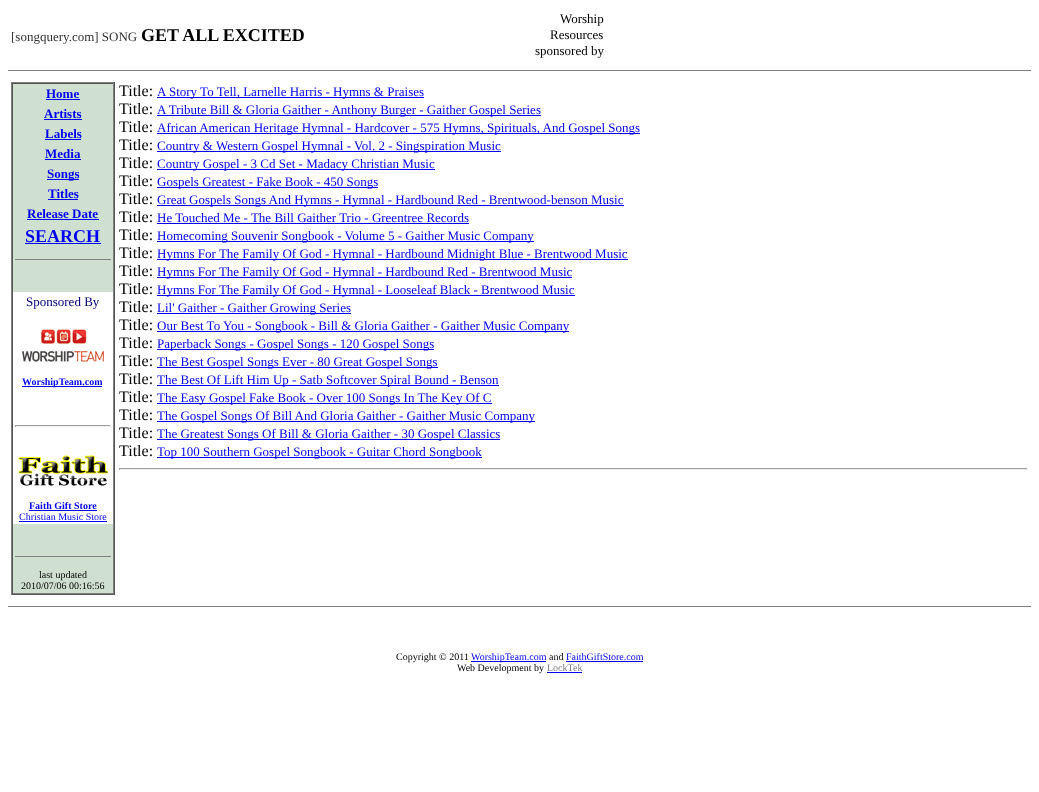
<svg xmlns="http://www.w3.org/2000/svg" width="1039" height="792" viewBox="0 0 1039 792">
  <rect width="100%" height="100%" fill="rgb(255,255,255)"/>
  <text x="11" y="41" font-family="Liberation Serif" font-size="13" fill="rgb(51,51,51)">[songquery.com] SONG</text>
  <text x="141" y="41" font-family="Liberation Serif" font-size="18" font-weight="bold" fill="rgb(0,0,0)">GET ALL EXCITED</text>
  <g font-family="Liberation Serif" font-size="13" fill="rgb(0,0,0)">
    <text x="560" y="23">Worship</text>
    <text x="550" y="39">Resources</text>
    <text x="535" y="55">sponsored by</text>
  </g>
  <rect x="8" y="70" width="1023" height="1" fill="rgb(128,128,128)"/>
  <rect x="13" y="84" width="100" height="509" fill="rgb(208,224,208)"/>
  <rect x="11" y="82" width="104" height="1" fill="rgb(128,128,128)"/>
  <rect x="114" y="82" width="1" height="513" fill="rgb(85,85,85)"/>
  <rect x="11" y="594" width="104" height="1" fill="rgb(85,85,85)"/>
  <rect x="11" y="82" width="1" height="513" fill="rgb(128,128,128)"/>
  <rect x="12" y="83" width="102" height="1" fill="rgb(85,85,85)"/>
  <rect x="113" y="83" width="1" height="511" fill="rgb(128,128,128)"/>
  <rect x="12" y="593" width="102" height="1" fill="rgb(128,128,128)"/>
  <rect x="12" y="83" width="1" height="511" fill="rgb(85,85,85)"/>
  <text x="46" y="98" font-family="Liberation Serif" font-size="13" font-weight="bold" fill="rgb(0,0,238)">Home</text>
  <rect x="46" y="99" width="34" height="1" fill="rgb(0,0,238)"/>
  <text x="44" y="118" font-family="Liberation Serif" font-size="13" font-weight="bold" fill="rgb(0,0,238)">Artists</text>
  <rect x="44" y="119" width="38" height="1" fill="rgb(0,0,238)"/>
  <text x="45" y="138" font-family="Liberation Serif" font-size="13" font-weight="bold" fill="rgb(0,0,238)">Labels</text>
  <rect x="45" y="139" width="36" height="1" fill="rgb(0,0,238)"/>
  <text x="45" y="158" font-family="Liberation Serif" font-size="13" font-weight="bold" fill="rgb(0,0,238)">Media</text>
  <rect x="45" y="159" width="36" height="1" fill="rgb(0,0,238)"/>
  <rect x="47" y="179" width="32" height="1" fill="rgb(0,0,238)"/>
  <g font-family="Liberation Serif" font-size="13" font-weight="bold" fill="rgb(0,0,238)">
    <text x="47" y="178">Songs</text>
    <text x="48" y="198">Titles</text>
  </g>
  <rect x="48" y="199" width="30" height="1" fill="rgb(0,0,238)"/>
  <text x="27" y="218" font-family="Liberation Serif" font-size="13" font-weight="bold" fill="rgb(0,0,238)">Release Date</text>
  <rect x="27" y="219" width="72" height="1" fill="rgb(0,0,238)"/>
  <text x="25" y="242" font-family="Liberation Serif" font-size="18" font-weight="bold" fill="rgb(0,0,238)">SEARCH</text>
  <rect x="25" y="243" width="76" height="1" fill="rgb(0,0,238)"/>
  <rect x="15" y="259" width="96" height="1" fill="rgb(128,128,128)"/>
  <rect x="13" y="292" width="100" height="232" fill="rgb(255,255,255)"/>
  <text x="26" y="306" font-family="Liberation Serif" font-size="13" fill="rgb(0,0,128)">Sponsored By</text>
  <image x="21" y="328" width="84" height="35" href="pic1.png"/>
  <rect x="22" y="386" width="80" height="1" fill="rgb(0,0,238)"/>
  <text x="22" y="385" font-family="Liberation Serif" font-size="10" font-weight="bold" fill="rgb(0,0,238)">WorshipTeam.com</text>
  <rect x="15" y="425" width="96" height="1" fill="rgb(159,159,159)"/>
  <rect x="110" y="425" width="1" height="2" fill="rgb(238,238,238)"/>
  <rect x="15" y="426" width="96" height="1" fill="rgb(238,238,238)"/>
  <rect x="15" y="425" width="1" height="2" fill="rgb(159,159,159)"/>
  <image x="18" y="455" width="90" height="31" href="pic2.png"/>
  <text x="29" y="509" font-family="Liberation Serif" font-size="10" font-weight="bold" fill="rgb(0,0,238)">Faith Gift Store</text>
  <rect x="29" y="510" width="68" height="1" fill="rgb(0,0,238)"/>
  <text x="19" y="520" font-family="Liberation Serif" font-size="10" fill="rgb(0,0,238)">Christian Music Store</text>
  <rect x="19" y="521" width="88" height="1" fill="rgb(0,0,238)"/>
  <rect x="15" y="556" width="96" height="1" fill="rgb(128,128,128)"/>
  <g font-family="Liberation Serif" font-size="10" fill="rgb(0,0,0)">
    <text x="39" y="578">last updated</text>
    <text x="21" y="589">2010/07/06 00:16:56</text>
  </g>
  <text x="119" y="96" font-family="Liberation Serif" font-size="16" fill="rgb(0,0,0)">Title:</text>
  <rect x="157" y="97" width="267" height="1" fill="rgb(0,0,238)"/>
  <text x="157" y="96" font-family="Liberation Serif" font-size="13" fill="rgb(0,0,238)">A Story To Tell, Larnelle Harris - Hymns &amp; Praises</text>
  <text x="119" y="114" font-family="Liberation Serif" font-size="16" fill="rgb(0,0,0)">Title:</text>
  <rect x="157" y="115" width="384" height="1" fill="rgb(0,0,238)"/>
  <text x="157" y="114" font-family="Liberation Serif" font-size="13" fill="rgb(0,0,238)">A Tribute Bill &amp; Gloria Gaither - Anthony Burger - Gaither Gospel Series</text>
  <text x="119" y="132" font-family="Liberation Serif" font-size="16" fill="rgb(0,0,0)">Title:</text>
  <rect x="157" y="133" width="483" height="1" fill="rgb(0,0,238)"/>
  <text x="157" y="132" font-family="Liberation Serif" font-size="13" fill="rgb(0,0,238)">African American Heritage Hymnal - Hardcover - 575 Hymns, Spirituals, And Gospel Songs</text>
  <text x="119" y="150" font-family="Liberation Serif" font-size="16" fill="rgb(0,0,0)">Title:</text>
  <rect x="157" y="151" width="344" height="1" fill="rgb(0,0,238)"/>
  <text x="157" y="150" font-family="Liberation Serif" font-size="13" fill="rgb(0,0,238)">Country &amp; Western Gospel Hymnal - Vol. 2 - Singspiration Music</text>
  <text x="119" y="168" font-family="Liberation Serif" font-size="16" fill="rgb(0,0,0)">Title:</text>
  <rect x="157" y="169" width="278" height="1" fill="rgb(0,0,238)"/>
  <text x="157" y="168" font-family="Liberation Serif" font-size="13" fill="rgb(0,0,238)">Country Gospel - 3 Cd Set - Madacy Christian Music</text>
  <text x="119" y="186" font-family="Liberation Serif" font-size="16" fill="rgb(0,0,0)">Title:</text>
  <rect x="157" y="187" width="221" height="1" fill="rgb(0,0,238)"/>
  <text x="157" y="186" font-family="Liberation Serif" font-size="13" fill="rgb(0,0,238)">Gospels Greatest - Fake Book - 450 Songs</text>
  <text x="119" y="204" font-family="Liberation Serif" font-size="16" fill="rgb(0,0,0)">Title:</text>
  <rect x="157" y="205" width="467" height="1" fill="rgb(0,0,238)"/>
  <text x="157" y="204" font-family="Liberation Serif" font-size="13" fill="rgb(0,0,238)">Great Gospels Songs And Hymns - Hymnal - Hardbound Red - Brentwood-benson Music</text>
  <text x="119" y="222" font-family="Liberation Serif" font-size="16" fill="rgb(0,0,0)">Title:</text>
  <text x="157" y="222" font-family="Liberation Serif" font-size="13" fill="rgb(0,0,238)">He Touched Me - The Bill Gaither Trio - Greentree Records</text>
  <rect x="157" y="223" width="312" height="1" fill="rgb(0,0,238)"/>
  <text x="119" y="240" font-family="Liberation Serif" font-size="16" fill="rgb(0,0,0)">Title:</text>
  <rect x="157" y="241" width="377" height="1" fill="rgb(0,0,238)"/>
  <text x="157" y="240" font-family="Liberation Serif" font-size="13" fill="rgb(0,0,238)">Homecoming Souvenir Songbook - Volume 5 - Gaither Music Company</text>
  <text x="119" y="258" font-family="Liberation Serif" font-size="16" fill="rgb(0,0,0)">Title:</text>
  <rect x="157" y="259" width="471" height="1" fill="rgb(0,0,238)"/>
  <text x="157" y="258" font-family="Liberation Serif" font-size="13" fill="rgb(0,0,238)">Hymns For The Family Of God - Hymnal - Hardbound Midnight Blue - Brentwood Music</text>
  <text x="119" y="276" font-family="Liberation Serif" font-size="16" fill="rgb(0,0,0)">Title:</text>
  <rect x="157" y="277" width="415" height="1" fill="rgb(0,0,238)"/>
  <text x="157" y="276" font-family="Liberation Serif" font-size="13" fill="rgb(0,0,238)">Hymns For The Family Of God - Hymnal - Hardbound Red - Brentwood Music</text>
  <text x="119" y="294" font-family="Liberation Serif" font-size="16" fill="rgb(0,0,0)">Title:</text>
  <rect x="157" y="295" width="418" height="1" fill="rgb(0,0,238)"/>
  <text x="157" y="294" font-family="Liberation Serif" font-size="13" fill="rgb(0,0,238)">Hymns For The Family Of God - Hymnal - Looseleaf Black - Brentwood Music</text>
  <text x="119" y="312" font-family="Liberation Serif" font-size="16" fill="rgb(0,0,0)">Title:</text>
  <rect x="157" y="313" width="194" height="1" fill="rgb(0,0,238)"/>
  <text x="157" y="312" font-family="Liberation Serif" font-size="13" fill="rgb(0,0,238)">Lil' Gaither - Gaither Growing Series</text>
  <text x="119" y="330" font-family="Liberation Serif" font-size="16" fill="rgb(0,0,0)">Title:</text>
  <rect x="157" y="331" width="412" height="1" fill="rgb(0,0,238)"/>
  <text x="157" y="330" font-family="Liberation Serif" font-size="13" fill="rgb(0,0,238)">Our Best To You - Songbook - Bill &amp; Gloria Gaither - Gaither Music Company</text>
  <text x="119" y="348" font-family="Liberation Serif" font-size="16" fill="rgb(0,0,0)">Title:</text>
  <rect x="157" y="349" width="277" height="1" fill="rgb(0,0,238)"/>
  <text x="157" y="348" font-family="Liberation Serif" font-size="13" fill="rgb(0,0,238)">Paperback Songs - Gospel Songs - 120 Gospel Songs</text>
  <text x="119" y="366" font-family="Liberation Serif" font-size="16" fill="rgb(0,0,0)">Title:</text>
  <rect x="157" y="367" width="281" height="1" fill="rgb(0,0,238)"/>
  <text x="157" y="366" font-family="Liberation Serif" font-size="13" fill="rgb(0,0,238)">The Best Gospel Songs Ever - 80 Great Gospel Songs</text>
  <text x="119" y="384" font-family="Liberation Serif" font-size="16" fill="rgb(0,0,0)">Title:</text>
  <rect x="157" y="385" width="342" height="1" fill="rgb(0,0,238)"/>
  <text x="157" y="384" font-family="Liberation Serif" font-size="13" fill="rgb(0,0,238)">The Best Of Lift Him Up - Satb Softcover Spiral Bound - Benson</text>
  <text x="119" y="402" font-family="Liberation Serif" font-size="16" fill="rgb(0,0,0)">Title:</text>
  <rect x="157" y="403" width="335" height="1" fill="rgb(0,0,238)"/>
  <text x="157" y="402" font-family="Liberation Serif" font-size="13" fill="rgb(0,0,238)">The Easy Gospel Fake Book - Over 100 Songs In The Key Of C</text>
  <text x="119" y="420" font-family="Liberation Serif" font-size="16" fill="rgb(0,0,0)">Title:</text>
  <rect x="157" y="421" width="378" height="1" fill="rgb(0,0,238)"/>
  <text x="157" y="420" font-family="Liberation Serif" font-size="13" fill="rgb(0,0,238)">The Gospel Songs Of Bill And Gloria Gaither - Gaither Music Company</text>
  <text x="119" y="438" font-family="Liberation Serif" font-size="16" fill="rgb(0,0,0)">Title:</text>
  <rect x="157" y="439" width="343" height="1" fill="rgb(0,0,238)"/>
  <text x="157" y="438" font-family="Liberation Serif" font-size="13" fill="rgb(0,0,238)">The Greatest Songs Of Bill &amp; Gloria Gaither - 30 Gospel Classics</text>
  <text x="119" y="456" font-family="Liberation Serif" font-size="16" fill="rgb(0,0,0)">Title:</text>
  <rect x="157" y="457" width="325" height="1" fill="rgb(0,0,238)"/>
  <text x="157" y="456" font-family="Liberation Serif" font-size="13" fill="rgb(0,0,238)">Top 100 Southern Gospel Songbook - Guitar Chord Songbook</text>
  <rect x="119" y="468" width="909" height="1" fill="rgb(159,159,159)"/>
  <rect x="1027" y="468" width="1" height="2" fill="rgb(238,238,238)"/>
  <rect x="119" y="469" width="909" height="1" fill="rgb(238,238,238)"/>
  <rect x="119" y="468" width="1" height="2" fill="rgb(159,159,159)"/>
  <rect x="8" y="606" width="1023" height="1" fill="rgb(128,128,128)"/>
  <text x="396" y="660" font-family="Liberation Serif" font-size="10" fill="rgb(0,0,0)">Copyright © 2011</text>
  <rect x="471" y="661" width="75" height="1" fill="rgb(0,0,238)"/>
  <text x="471" y="660" font-family="Liberation Serif" font-size="10" fill="rgb(0,0,238)">WorshipTeam.com</text>
  <text x="549" y="660" font-family="Liberation Serif" font-size="10" fill="rgb(0,0,0)">and</text>
  <text x="566" y="660" font-family="Liberation Serif" font-size="10" fill="rgb(0,0,238)">FaithGiftStore.com</text>
  <rect x="566" y="661" width="77" height="1" fill="rgb(0,0,238)"/>
  <text x="457" y="671" font-family="Liberation Serif" font-size="10" fill="rgb(0,0,0)">Web Development by</text>
  <text x="547" y="671" font-family="Liberation Serif" font-size="10" fill="rgb(128,128,128)">LockTek</text>
  <rect x="547" y="672" width="35" height="1" fill="rgb(0,0,238)"/>
</svg>
